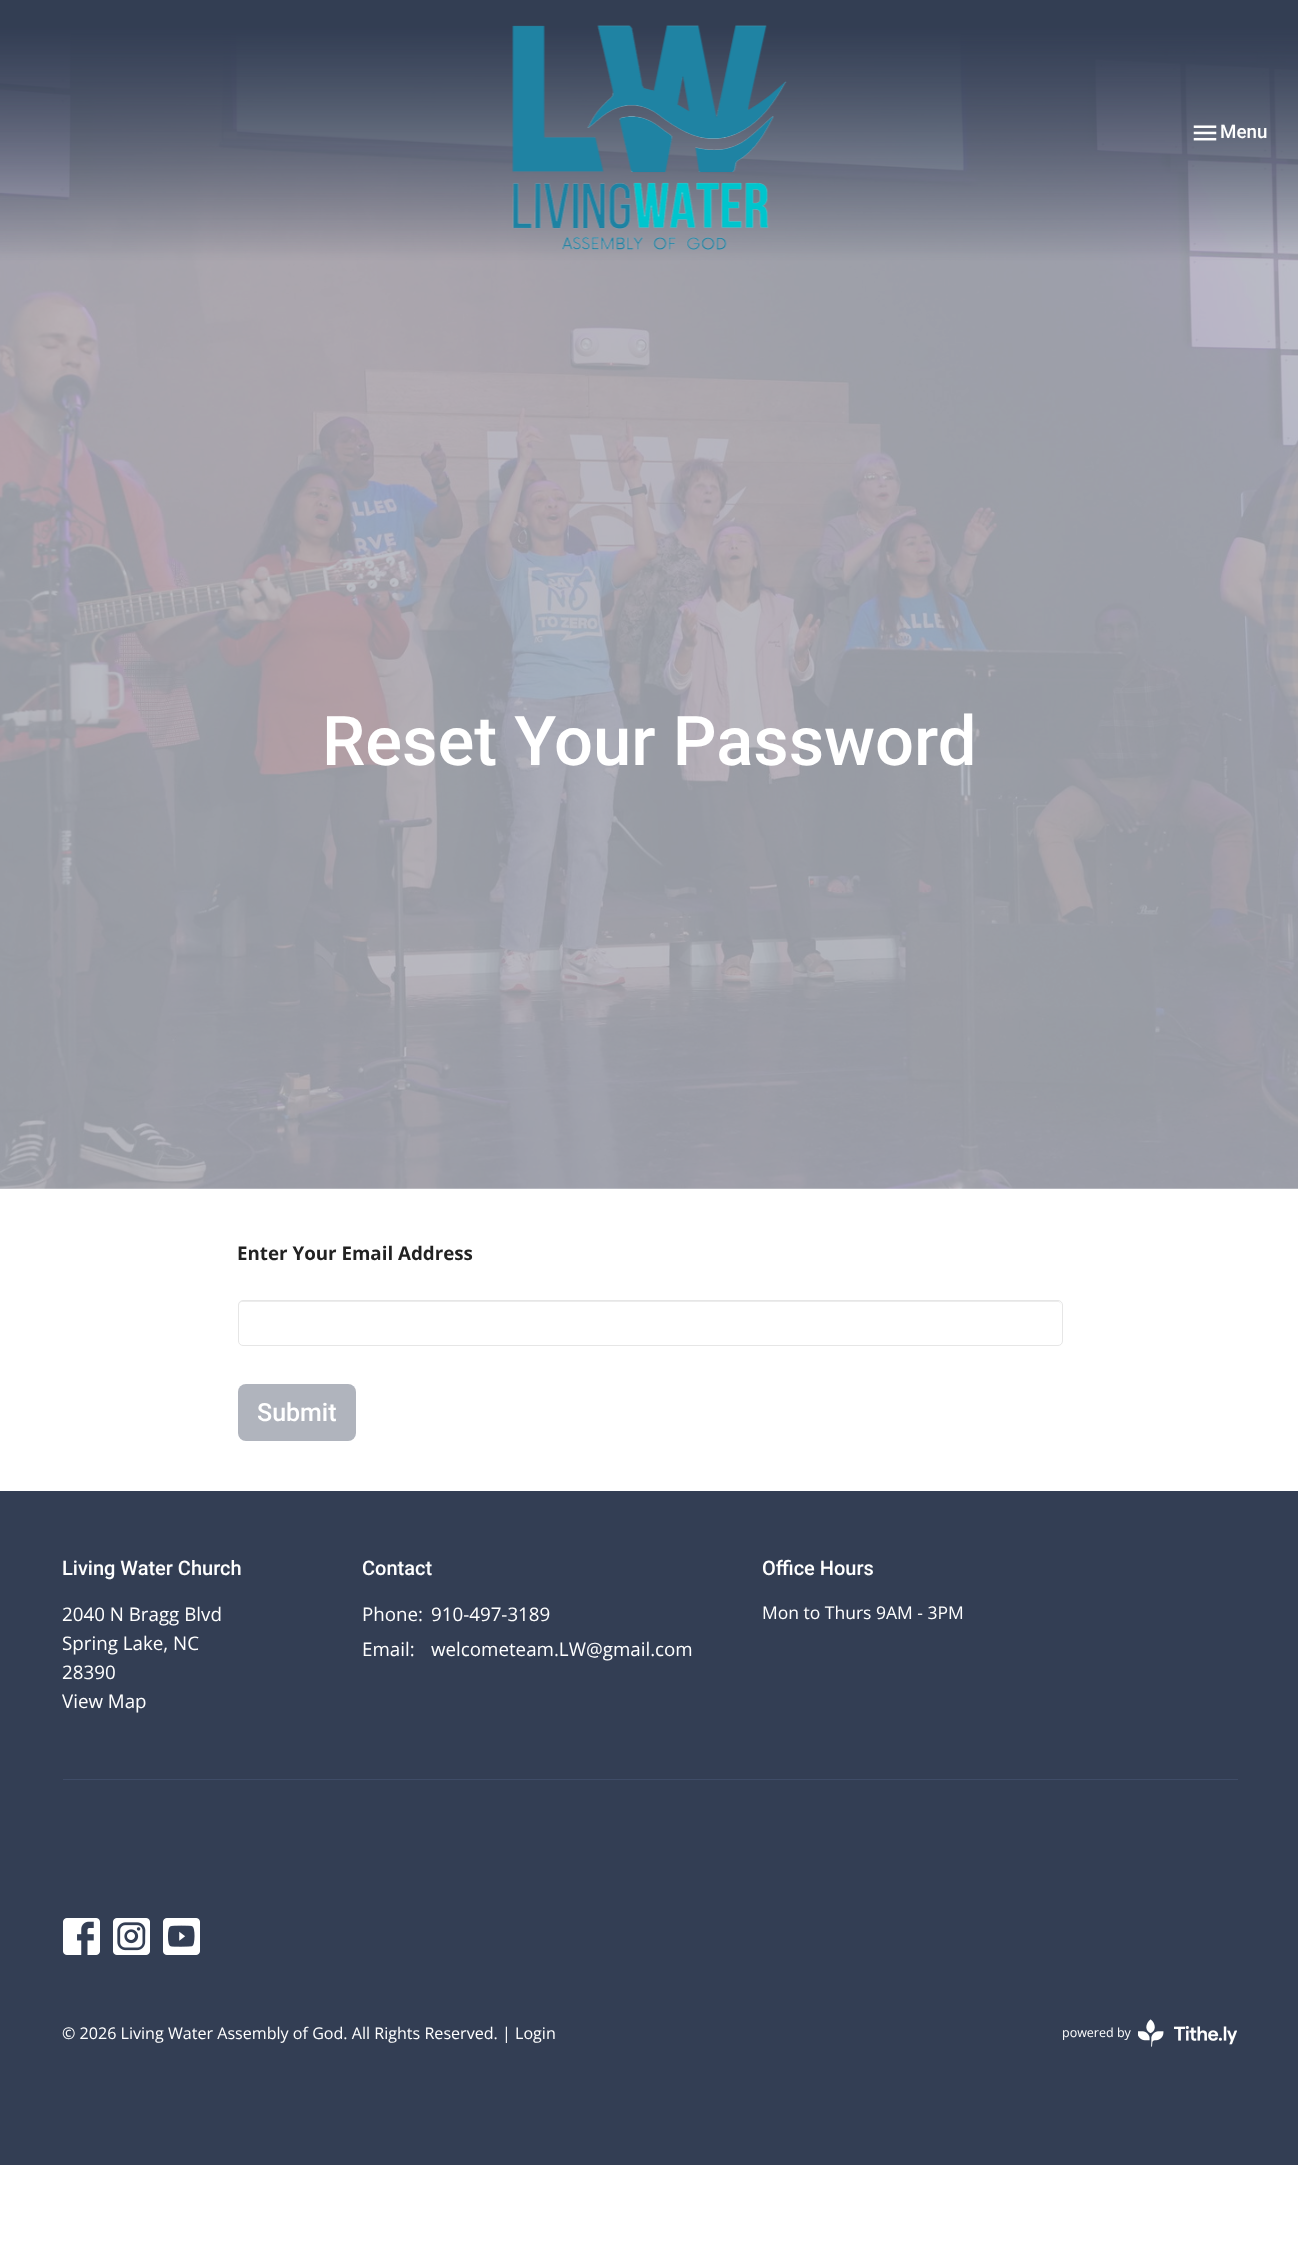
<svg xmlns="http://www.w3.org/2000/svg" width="1298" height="2243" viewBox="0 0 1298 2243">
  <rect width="100%" height="100%" fill="rgb(255,255,255)"/>
  <image x="0" y="0" width="1298" height="1189" href="pic3.png"/>
  <image x="512" y="25" width="275" height="225" href="pic1.png"/>
  <image x="1193" y="125" width="24" height="16" href="pic2.png"/>
  <text x="1220" y="138" font-family="Roboto" font-size="18.75" font-weight="500" fill="rgb(255,255,255)">Menu</text>
  <text x="322" y="765" font-family="Roboto" font-size="68.75" font-weight="500" fill="rgb(255,255,255)">Reset Your Password</text>
  <text x="237" y="1260" font-family="Open Sans" font-size="18.75" font-weight="bold" fill="rgb(34,34,34)">Enter Your Email Address</text>
  <path d="M242 1302H1058C1060 1302 1061 1304 1061 1306C1061 1303 1060 1301 1057 1301H243C240 1301 239 1303 239 1306C239 1304 240 1302 242 1302Z" fill="rgb(236,236,236)"/>
  <rect x="238.5" y="1300.5" width="824" height="45" rx="4.5" fill="none" stroke="rgb(230,230,230)"/>
  <rect x="238" y="1384" width="118" height="57" rx="8" fill="rgb(176,180,189)"/>
  <text x="257" y="1421" font-family="Roboto" font-size="25" font-weight="500" fill="rgb(255,255,255)">Submit</text>
  <rect x="0" y="1491" width="1298" height="674" fill="rgb(51,62,84)"/>
  <text x="62" y="1575" font-family="Roboto" font-size="20" font-weight="500" fill="rgb(255,255,255)">Living Water Church</text>
  <g font-family="Open Sans" font-size="18.75" fill="rgb(255,255,255)">
    <text>
      <tspan x="62" y="1621">2040 N Bragg Blvd</tspan>
      <tspan x="62" y="1650">Spring Lake, NC</tspan>
      <tspan x="62" y="1679">28390</tspan>
      <tspan x="62" y="1708">View Map</tspan>
    </text>
  </g>
  <text x="362" y="1575" font-family="Roboto" font-size="20" font-weight="500" fill="rgb(255,255,255)">Contact</text>
  <g font-family="Open Sans" font-size="18.75" fill="rgb(255,255,255)">
    <text x="362" y="1621">Phone:</text>
    <text x="431" y="1621">910-497-3189</text>
    <text x="362" y="1656">Email:</text>
    <text x="431" y="1656">welcometeam.LW@gmail.com</text>
  </g>
  <text x="762" y="1575" font-family="Roboto" font-size="20" font-weight="500" fill="rgb(255,255,255)">Office Hours</text>
  <text x="762" y="1619" font-family="Open Sans" font-size="17.5" fill="rgb(255,255,255)">Mon to Thurs 9AM - 3PM</text>
  <rect x="63" y="1779" width="1175" height="1" fill="rgb(63,76,103)"/>
  <image x="63" y="1918" width="37" height="37" href="pic4.png"/>
  <image x="113" y="1918" width="37" height="37" href="pic5.png"/>
  <image x="163" y="1918" width="37" height="37" href="pic6.png"/>
  <g font-family="Open Sans" font-size="16.1" fill="rgb(255,255,255)">
    <text x="62" y="2039">© 2026 Living Water Assembly of God. All Rights Reserved. |</text>
    <text x="515" y="2039">Login</text>
  </g>
  <text x="1062" y="2037" font-family="Open Sans" font-size="12.5" fill="rgb(255,255,255)">powered by</text>
  <image x="1138" y="2019" width="99" height="28" href="pic7.png"/>
</svg>
